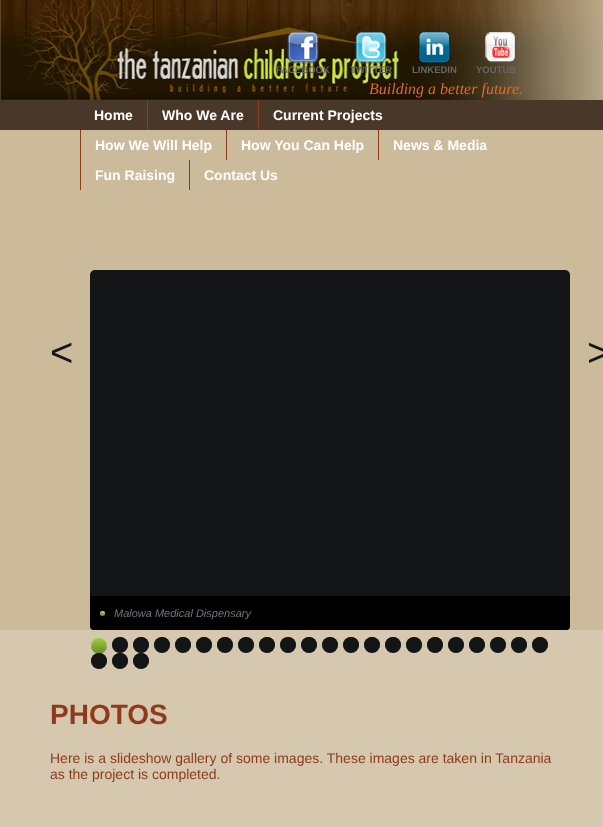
<svg xmlns="http://www.w3.org/2000/svg" width="603" height="827" viewBox="0 0 603 827">
  <defs>
    <linearGradient id="g1" gradientUnits="userSpaceOnUse" x1="103" y1="611" x2="103" y2="616"><stop offset="0" stop-color="rgb(165,205,78)"/><stop offset="1" stop-color="rgb(107,143,26)"/></linearGradient>
    <linearGradient id="g2" gradientUnits="userSpaceOnUse" x1="99" y1="637" x2="99" y2="653"><stop offset="0" stop-color="rgb(165,205,78)"/><stop offset="1" stop-color="rgb(107,143,26)"/></linearGradient>
  </defs>
  <rect width="100%" height="100%" fill="rgb(203,187,155)"/>
  <image x="0" y="0" width="603" height="100" href="pic1.png"/>
  <image x="287" y="32" width="32" height="32" href="pic2.png"/>
  <text x="276" y="73" font-family="Liberation Sans" font-size="9.5" font-weight="bold" fill="rgb(102,102,102)">FACEBOOK</text>
  <image x="355" y="32" width="32" height="32" href="pic3.png"/>
  <text x="350" y="73" font-family="Liberation Sans" font-size="9.5" font-weight="bold" fill="rgb(102,102,102)">TWITTER</text>
  <image x="418" y="32" width="32" height="32" href="pic4.png"/>
  <text x="412" y="73" font-family="Liberation Sans" font-size="9.5" font-weight="bold" fill="rgb(102,102,102)">LINKEDIN</text>
  <image x="484" y="32" width="31" height="32" href="pic5.png"/>
  <text x="476" y="73" font-family="Liberation Sans" font-size="9.5" font-weight="bold" fill="rgb(102,102,102)">YOUTUB</text>
  <text x="369" y="94" font-family="Liberation Serif" font-size="16" font-style="italic" fill="rgb(222,106,42)">Building a better future.</text>
  <rect x="0" y="100" width="603" height="30" fill="rgb(73,56,41)"/>
  <text x="94" y="120" font-family="Liberation Sans" font-size="14" font-weight="bold" fill="rgb(255,255,255)">Home</text>
  <rect x="147" y="100" width="1" height="30" fill="rgb(143,59,27)"/>
  <text x="162" y="120" font-family="Liberation Sans" font-size="14" font-weight="bold" fill="rgb(255,255,255)">Who We Are</text>
  <rect x="258" y="100" width="1" height="30" fill="rgb(143,59,27)"/>
  <text x="273" y="120" font-family="Liberation Sans" font-size="14" font-weight="bold" fill="rgb(255,255,255)">Current Projects</text>
  <rect x="80" y="130" width="1" height="60" fill="rgb(143,59,27)"/>
  <text x="95" y="150" font-family="Liberation Sans" font-size="14" font-weight="bold" fill="rgb(255,255,255)">How We Will Help</text>
  <rect x="226" y="130" width="1" height="30" fill="rgb(143,59,27)"/>
  <text x="241" y="150" font-family="Liberation Sans" font-size="14" font-weight="bold" fill="rgb(255,255,255)">How You Can Help</text>
  <rect x="378" y="130" width="1" height="30" fill="rgb(143,59,27)"/>
  <g font-family="Liberation Sans" font-size="14" font-weight="bold" fill="rgb(255,255,255)">
    <text x="393" y="150">News &amp; Media</text>
    <text x="95" y="180">Fun Raising</text>
  </g>
  <rect x="189" y="160" width="1" height="30" fill="rgb(143,59,27)"/>
  <text x="204" y="180" font-family="Liberation Sans" font-size="14" font-weight="bold" fill="rgb(255,255,255)">Contact Us</text>
  <rect x="90" y="270" width="480" height="360" rx="5" fill="rgb(20,21,23)"/>
  <g font-family="Liberation Sans" font-size="40" fill="rgb(20,21,23)">
    <text x="50" y="366">&lt;</text>
    <text x="587" y="366">&gt;</text>
  </g>
  <path d="M90 596H570V627C570 628.5 568.5 630 567 630H93C91.5 630 90 628.5 90 627Z" fill="rgb(0,0,0)"/>
  <circle cx="102.5" cy="613.5" r="2.5" fill="url(#g1)"/>
  <path d="M102 612C103.5 612 104.5 613 105 614C105.5 610.5 100.5 610 100 613.5C100.5 612.5 101 612 102 612Z" fill="rgba(255,255,255,0.4)"/>
  <text x="114" y="617" font-family="Liberation Sans" font-size="11" font-style="italic" fill="rgb(114,117,129)">Malowa Medical Dispensary</text>
  <rect x="0" y="630" width="603" height="197" fill="rgb(213,200,175)"/>
  <rect x="91" y="638" width="16" height="16" rx="8" fill="rgba(0,0,0,0.3)" filter="blur(0.5px)"/>
  <circle cx="99" cy="645" r="8" fill="url(#g2)"/>
  <path d="M99 638C105 638 107.5 644 106 648.5C107 646.5 107.5 644 106.5 642C102 631.5 87 639 92 648.5C90.5 644 93 638 99 638Z" fill="rgba(255,255,255,0.4)"/>
  <circle cx="120" cy="645" r="8" fill="rgb(20,21,23)"/>
  <path d="M120 638C126 638 128.5 644 127 648.5C128 646.5 128.5 644 127.5 642C123 631.5 108 639 113 648.5C111.5 644 114 638 120 638Z" fill="rgba(0,0,0,0.5)"/>
  <circle cx="141" cy="645" r="8" fill="rgb(20,21,23)"/>
  <path d="M141 638C147 638 149.5 644 148 648.5C149 646.5 149.5 644 148.5 642C144 631.5 129 639 134 648.5C132.5 644 135 638 141 638Z" fill="rgba(0,0,0,0.5)"/>
  <circle cx="162" cy="645" r="8" fill="rgb(20,21,23)"/>
  <path d="M162 638C168 638 170.5 644 169 648.5C170 646.5 170.5 644 169.5 642C165 631.5 150 639 155 648.5C153.5 644 156 638 162 638Z" fill="rgba(0,0,0,0.5)"/>
  <circle cx="183" cy="645" r="8" fill="rgb(20,21,23)"/>
  <path d="M183 638C189 638 191.5 644 190 648.5C191 646.5 191.5 644 190.5 642C186 631.5 171 639 176 648.5C174.5 644 177 638 183 638Z" fill="rgba(0,0,0,0.5)"/>
  <circle cx="204" cy="645" r="8" fill="rgb(20,21,23)"/>
  <path d="M204 638C210 638 212.5 644 211 648.5C212 646.5 212.5 644 211.5 642C207 631.5 192 639 197 648.5C195.5 644 198 638 204 638Z" fill="rgba(0,0,0,0.5)"/>
  <circle cx="225" cy="645" r="8" fill="rgb(20,21,23)"/>
  <path d="M225 638C231 638 233.5 644 232 648.5C233 646.5 233.5 644 232.5 642C228 631.5 213 639 218 648.5C216.5 644 219 638 225 638Z" fill="rgba(0,0,0,0.5)"/>
  <circle cx="246" cy="645" r="8" fill="rgb(20,21,23)"/>
  <path d="M246 638C252 638 254.5 644 253 648.5C254 646.5 254.5 644 253.5 642C249 631.5 234 639 239 648.5C237.5 644 240 638 246 638Z" fill="rgba(0,0,0,0.5)"/>
  <circle cx="267" cy="645" r="8" fill="rgb(20,21,23)"/>
  <path d="M267 638C273 638 275.5 644 274 648.5C275 646.5 275.5 644 274.5 642C270 631.5 255 639 260 648.5C258.5 644 261 638 267 638Z" fill="rgba(0,0,0,0.5)"/>
  <circle cx="288" cy="645" r="8" fill="rgb(20,21,23)"/>
  <path d="M288 638C294 638 296.5 644 295 648.5C296 646.5 296.5 644 295.5 642C291 631.5 276 639 281 648.5C279.5 644 282 638 288 638Z" fill="rgba(0,0,0,0.5)"/>
  <circle cx="309" cy="645" r="8" fill="rgb(20,21,23)"/>
  <path d="M309 638C315 638 317.5 644 316 648.5C317 646.5 317.5 644 316.5 642C312 631.5 297 639 302 648.5C300.5 644 303 638 309 638Z" fill="rgba(0,0,0,0.5)"/>
  <circle cx="330" cy="645" r="8" fill="rgb(20,21,23)"/>
  <path d="M330 638C336 638 338.5 644 337 648.5C338 646.5 338.5 644 337.5 642C333 631.5 318 639 323 648.5C321.5 644 324 638 330 638Z" fill="rgba(0,0,0,0.5)"/>
  <circle cx="351" cy="645" r="8" fill="rgb(20,21,23)"/>
  <path d="M351 638C357 638 359.5 644 358 648.5C359 646.5 359.5 644 358.5 642C354 631.5 339 639 344 648.5C342.5 644 345 638 351 638Z" fill="rgba(0,0,0,0.5)"/>
  <circle cx="372" cy="645" r="8" fill="rgb(20,21,23)"/>
  <path d="M372 638C378 638 380.5 644 379 648.5C380 646.5 380.5 644 379.5 642C375 631.5 360 639 365 648.5C363.5 644 366 638 372 638Z" fill="rgba(0,0,0,0.5)"/>
  <circle cx="393" cy="645" r="8" fill="rgb(20,21,23)"/>
  <path d="M393 638C399 638 401.5 644 400 648.5C401 646.5 401.5 644 400.5 642C396 631.5 381 639 386 648.5C384.5 644 387 638 393 638Z" fill="rgba(0,0,0,0.5)"/>
  <circle cx="414" cy="645" r="8" fill="rgb(20,21,23)"/>
  <path d="M414 638C420 638 422.5 644 421 648.5C422 646.5 422.5 644 421.5 642C417 631.5 402 639 407 648.5C405.5 644 408 638 414 638Z" fill="rgba(0,0,0,0.5)"/>
  <circle cx="435" cy="645" r="8" fill="rgb(20,21,23)"/>
  <path d="M435 638C441 638 443.5 644 442 648.5C443 646.5 443.5 644 442.5 642C438 631.5 423 639 428 648.5C426.5 644 429 638 435 638Z" fill="rgba(0,0,0,0.5)"/>
  <circle cx="456" cy="645" r="8" fill="rgb(20,21,23)"/>
  <path d="M456 638C462 638 464.5 644 463 648.5C464 646.5 464.5 644 463.5 642C459 631.5 444 639 449 648.5C447.5 644 450 638 456 638Z" fill="rgba(0,0,0,0.5)"/>
  <circle cx="477" cy="645" r="8" fill="rgb(20,21,23)"/>
  <path d="M477 638C483 638 485.5 644 484 648.5C485 646.5 485.5 644 484.5 642C480 631.5 465 639 470 648.5C468.5 644 471 638 477 638Z" fill="rgba(0,0,0,0.5)"/>
  <circle cx="498" cy="645" r="8" fill="rgb(20,21,23)"/>
  <path d="M498 638C504 638 506.5 644 505 648.5C506 646.5 506.5 644 505.5 642C501 631.5 486 639 491 648.5C489.5 644 492 638 498 638Z" fill="rgba(0,0,0,0.5)"/>
  <circle cx="519" cy="645" r="8" fill="rgb(20,21,23)"/>
  <path d="M519 638C525 638 527.5 644 526 648.5C527 646.5 527.5 644 526.5 642C522 631.5 507 639 512 648.5C510.5 644 513 638 519 638Z" fill="rgba(0,0,0,0.5)"/>
  <circle cx="540" cy="645" r="8" fill="rgb(20,21,23)"/>
  <path d="M540 638C546 638 548.5 644 547 648.5C548 646.5 548.5 644 547.5 642C543 631.5 528 639 533 648.5C531.5 644 534 638 540 638Z" fill="rgba(0,0,0,0.5)"/>
  <circle cx="99" cy="661" r="8" fill="rgb(20,21,23)"/>
  <path d="M99 654C105 654 107.5 660 106 664.5C107 662.5 107.5 660 106.5 658C102 647.5 87 655 92 664.5C90.5 660 93 654 99 654Z" fill="rgba(0,0,0,0.5)"/>
  <circle cx="120" cy="661" r="8" fill="rgb(20,21,23)"/>
  <path d="M120 654C126 654 128.5 660 127 664.5C128 662.5 128.5 660 127.5 658C123 647.5 108 655 113 664.5C111.5 660 114 654 120 654Z" fill="rgba(0,0,0,0.5)"/>
  <circle cx="141" cy="661" r="8" fill="rgb(20,21,23)"/>
  <path d="M141 654C147 654 149.5 660 148 664.5C149 662.5 149.5 660 148.5 658C144 647.5 129 655 134 664.5C132.5 660 135 654 141 654Z" fill="rgba(0,0,0,0.5)"/>
  <text x="50" y="724" font-family="Liberation Sans" font-size="28" font-weight="bold" fill="rgb(143,59,27)">PHOTOS</text>
  <g font-family="Liberation Sans" font-size="14" fill="rgb(143,59,27)">
    <text>
      <tspan x="50" y="763">Here is a slideshow gallery of some images. These images are taken in Tanzania</tspan>
      <tspan x="50" y="779">as the project is completed.</tspan>
    </text>
  </g>
</svg>
